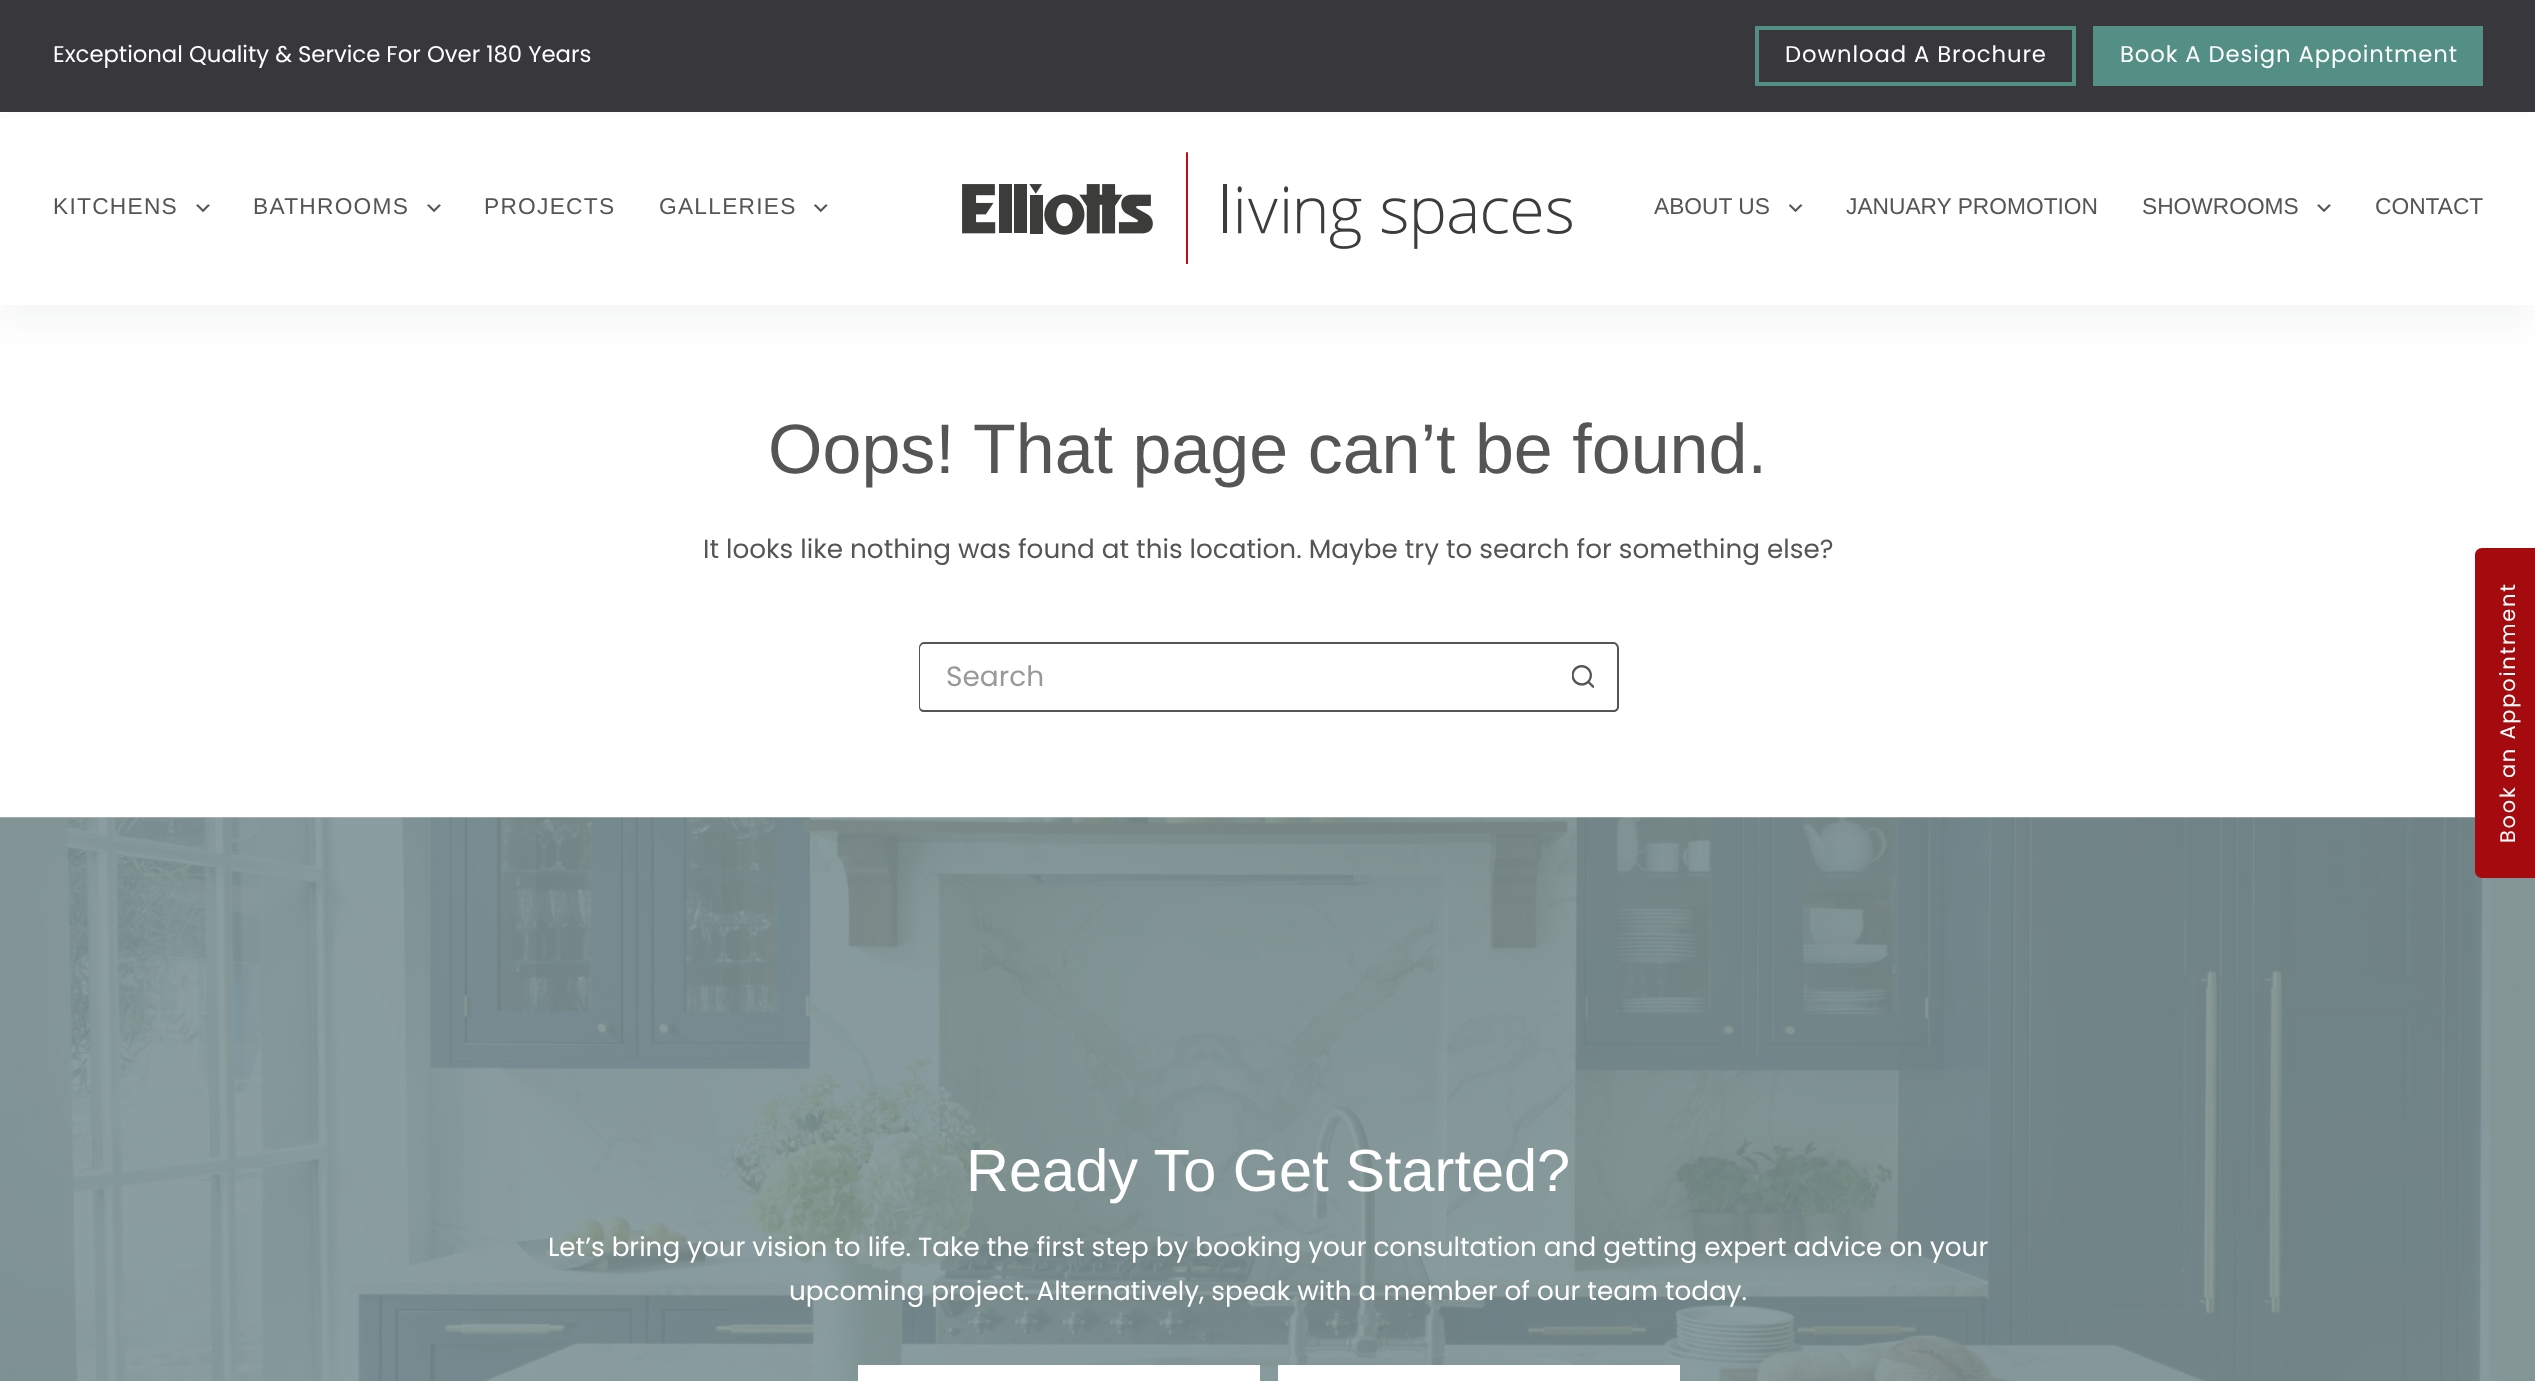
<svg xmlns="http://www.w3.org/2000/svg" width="2535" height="1381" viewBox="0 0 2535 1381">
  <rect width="100%" height="100%" fill="rgb(255,255,255)"/>
  <rect x="0" y="130" width="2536" height="192" fill="rgba(44,62,80,0.05)" filter="blur(17.5px)"/>
  <rect x="0" y="0" width="2535" height="112" fill="rgb(56,55,60)"/>
  <text x="53" y="62" font-family="Poppins" font-size="22.75" fill="rgb(255,255,255)">Exceptional Quality &amp; Service For Over 180 Years</text>
  <rect x="1757" y="28" width="317" height="56" fill="none" stroke="rgb(83,143,133)" stroke-width="4"/>
  <text x="1785" y="62" font-family="Poppins" font-size="22.75" letter-spacing="0.9" fill="rgb(255,255,255)">Download A Brochure</text>
  <rect x="2093" y="26" width="390" height="60" fill="rgb(84,143,134)"/>
  <text x="2120" y="62" font-family="Poppins" font-size="22.75" letter-spacing="0.9" fill="rgb(255,255,255)">Book A Design Appointment</text>
  <rect x="0" y="118" width="2535" height="187" fill="rgb(255,255,255)"/>
  <text x="53" y="214" font-family="Liberation Sans" font-size="22.75" letter-spacing="1.25" fill="rgb(85,85,85)">KITCHENS</text>
  <image x="196" y="204" width="14" height="9" href="pic1.png"/>
  <text x="253" y="214" font-family="Liberation Sans" font-size="22.75" letter-spacing="1.25" fill="rgb(85,85,85)">BATHROOMS</text>
  <image x="427" y="204" width="14" height="9" href="pic1.png"/>
  <g font-family="Liberation Sans" font-size="22.75" letter-spacing="1.25" fill="rgb(85,85,85)">
    <text x="484" y="214">PROJECTS</text>
    <text x="659" y="214">GALLERIES</text>
  </g>
  <image x="814" y="204" width="14" height="9" href="pic2.png"/>
  <image x="962" y="152" width="610" height="112" href="pic3.png"/>
  <text x="1654" y="214" font-family="Liberation Sans" font-size="22.75" fill="rgb(85,85,85)">ABOUT US</text>
  <image x="1789" y="204" width="14" height="9" href="pic4.png"/>
  <g font-family="Liberation Sans" font-size="22.75" fill="rgb(85,85,85)">
    <text x="1846" y="214">JANUARY PROMOTION</text>
    <text x="2142" y="214">SHOWROOMS</text>
  </g>
  <image x="2317" y="204" width="14" height="9" href="pic1.png"/>
  <text x="2375" y="214" font-family="Liberation Sans" font-size="22.75" fill="rgb(85,85,85)">CONTACT</text>
  <text x="768" y="473" font-family="Liberation Sans" font-size="70" fill="rgb(85,85,85)">Oops! That page can’t be found.</text>
  <text x="703" y="558" font-family="Poppins" font-size="26.25" fill="rgb(85,85,85)">It looks like nothing was found at this location. Maybe try to search for something else?</text>
  <path d="M924 642H1549V712H924C921 712 919 710 919 707V648C919 645 921 642 924 642ZM924 644H1549V710H924C922 710 920 709 920 707V648C920 646 922 644 924 644Z" fill="rgb(85,85,85)" fill-rule="evenodd"/>
  <text x="946" y="686" font-family="Poppins" font-size="28" fill="rgb(153,153,153)">Search</text>
  <path d="M1549 642H1614C1616 642 1619 645 1619 648V707C1619 710 1616 712 1614 712H1549ZM1549 644H1614C1615 644 1617 646 1617 648V707C1617 709 1615 710 1614 710H1549Z" fill="rgb(85,85,85)" fill-rule="evenodd"/>
  <image x="1572" y="665" width="22" height="23" href="pic5.png"/>
  <image x="0" y="817" width="2535" height="564" href="pic6.png"/>
  <text x="966" y="1191" font-family="Liberation Sans" font-size="59.5" fill="rgb(255,255,255)">Ready To Get Started?</text>
  <g font-family="Poppins" font-size="26.25" fill="rgb(255,255,255)">
    <text x="548" y="1256">Let’s bring your vision to life. Take the first step by booking your consultation and getting expert advice on your</text>
    <text x="789" y="1300">upcoming project. Alternatively, speak with a member of our team today.</text>
  </g>
  <rect x="858" y="1365" width="402" height="16" fill="rgb(255,255,255)"/>
  <rect x="1278" y="1365" width="402" height="16" fill="rgb(255,255,255)"/>
  <path d="M2475 871V555C2475 551 2478 548 2482 548H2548V878H2482C2478 878 2475 875 2475 871Z" fill="rgb(165,10,14)"/>
  <text x="2515" y="843" transform="rotate(-90 2515 843)" font-family="Poppins" font-size="21" letter-spacing="1.75" fill="rgb(255,255,255)">Book an Appointment</text>
</svg>
